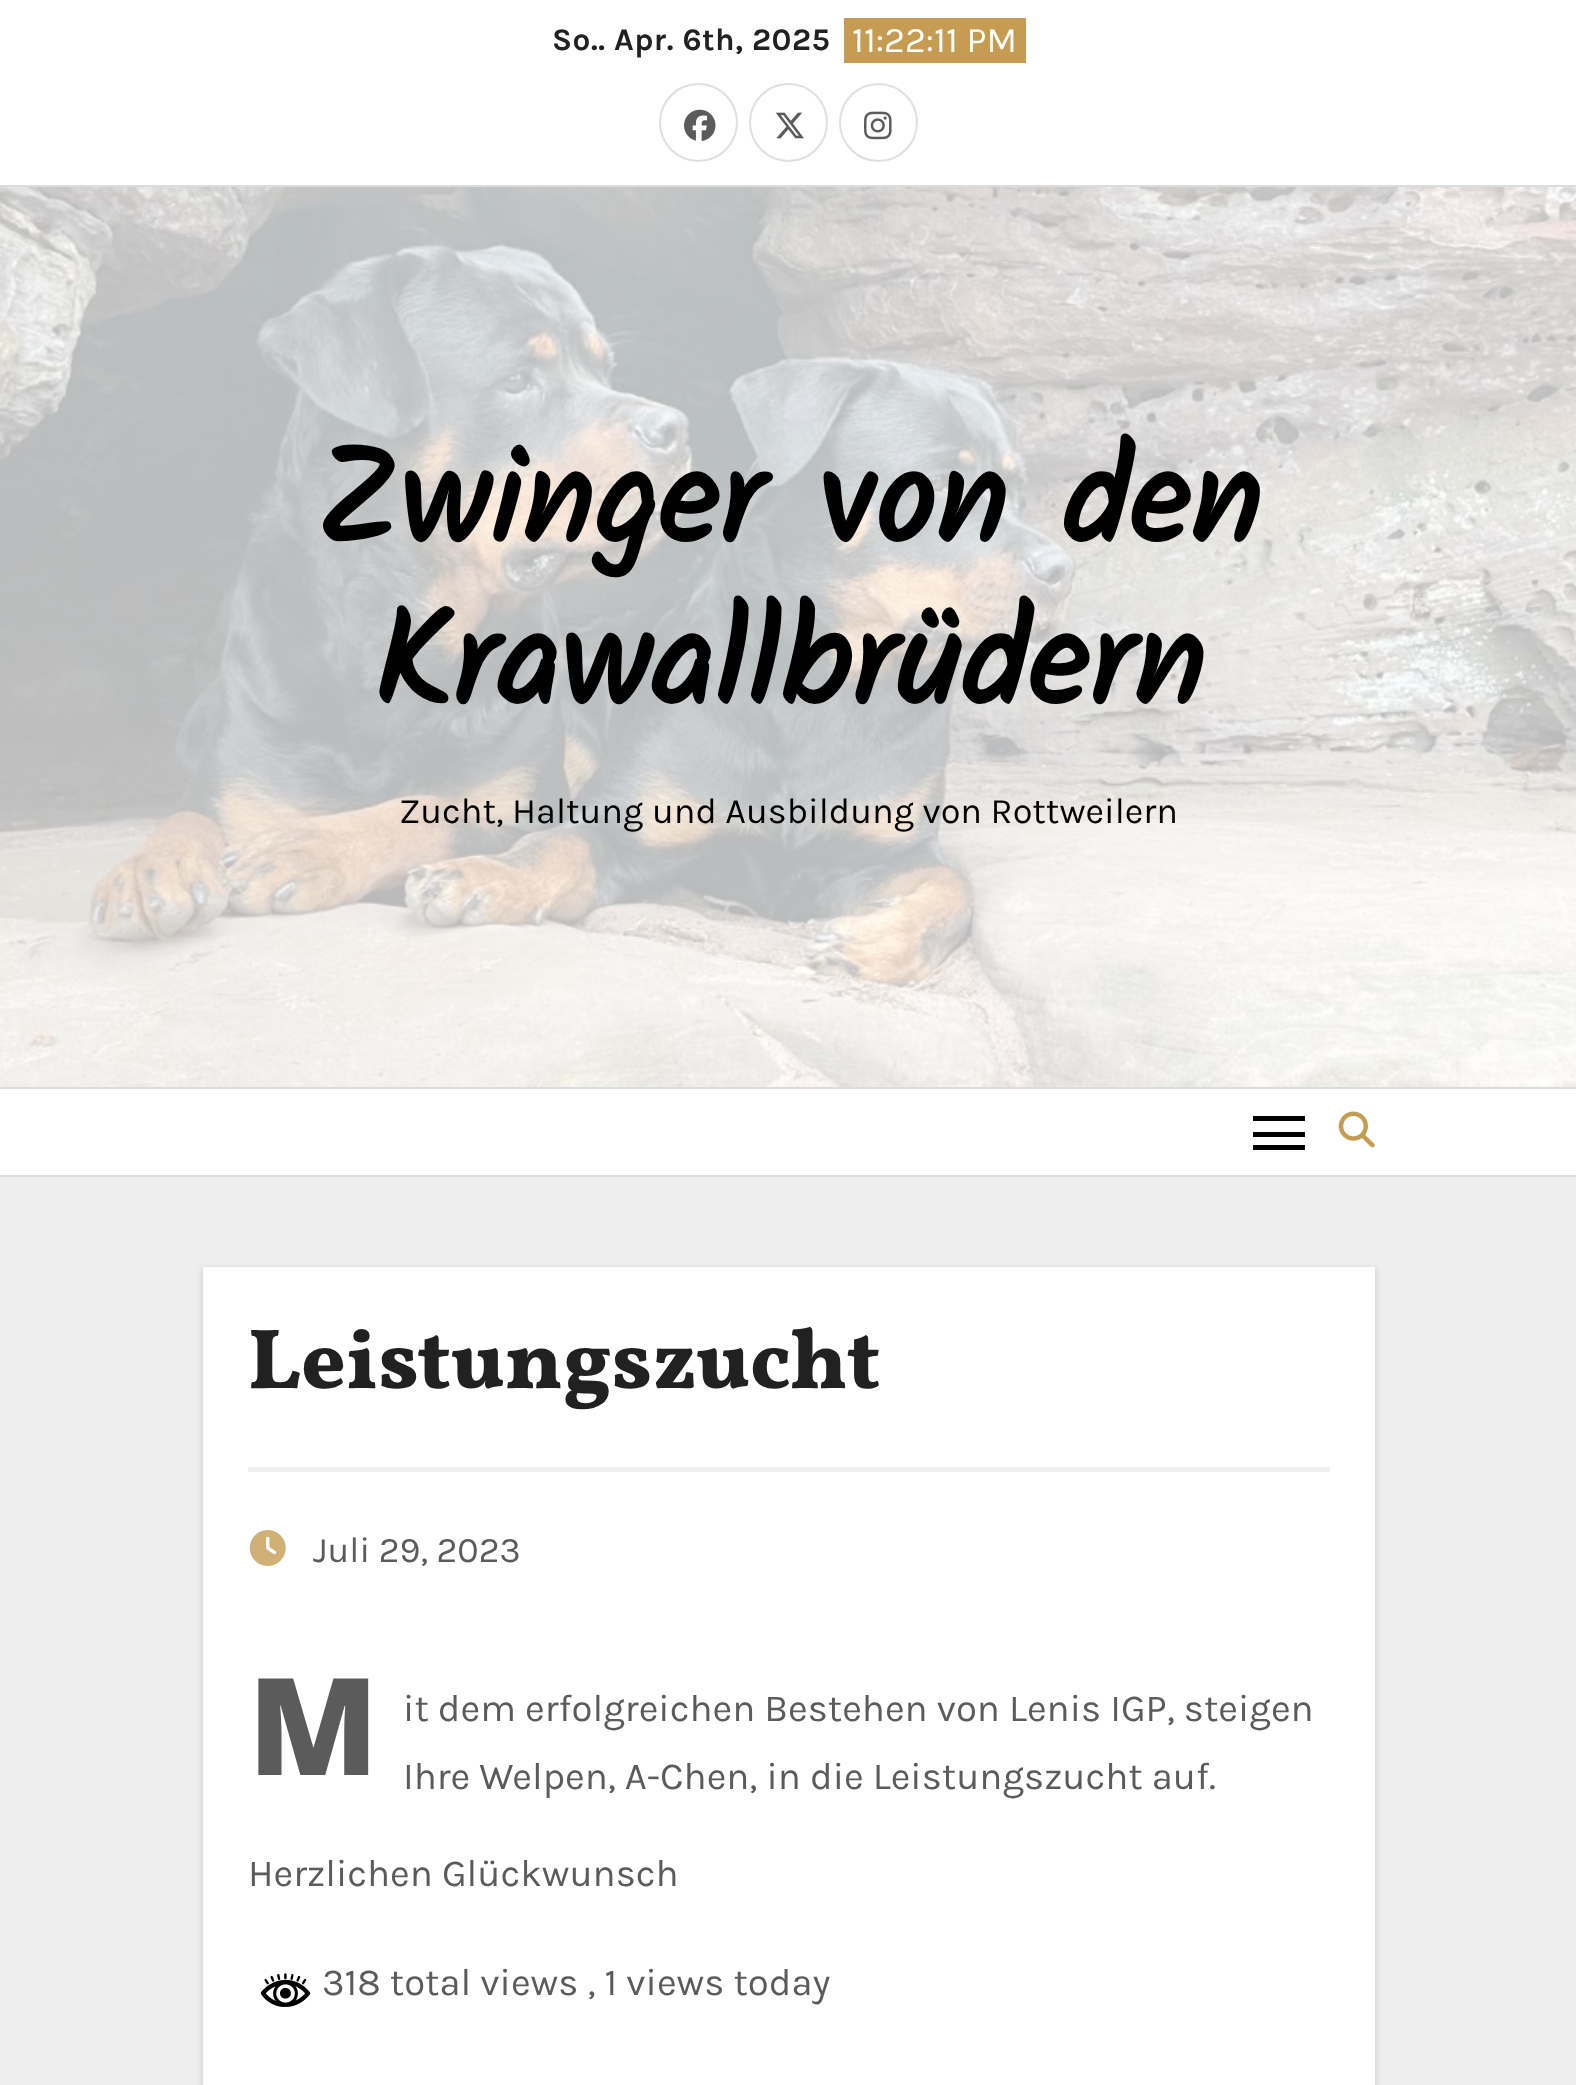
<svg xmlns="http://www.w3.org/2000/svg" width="1576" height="2085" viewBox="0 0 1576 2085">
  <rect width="100%" height="100%" fill="rgb(238,238,238)"/>
  <rect x="0" y="0" width="1576" height="185" fill="rgb(255,255,255)"/>
  <rect x="0" y="185" width="1576" height="2" fill="rgb(220,220,220)"/>
  <text x="552" y="50" font-family="Karla" font-size="31.5" font-weight="bold" letter-spacing="0.5" fill="rgb(33,33,33)">So.. Apr. 6th, 2025</text>
  <rect x="844" y="18" width="182" height="45" fill="rgb(198,156,83)"/>
  <text x="852" y="52" font-family="Karla" font-size="36" fill="rgb(255,255,255)">11:22:11 PM</text>
  <circle cx="698.5" cy="122.5" r="38.5" fill="none" stroke="rgb(224,224,224)" stroke-width="2"/>
  <image x="684" y="109" width="32" height="32" href="pic1.png"/>
  <circle cx="788.5" cy="122.5" r="38.5" fill="none" stroke="rgb(224,224,224)" stroke-width="2"/>
  <image x="775" y="112" width="29" height="27" href="pic2.png"/>
  <circle cx="878.5" cy="122.5" r="38.5" fill="none" stroke="rgb(224,224,224)" stroke-width="2"/>
  <image x="864" y="111" width="28" height="29" href="pic3.png"/>
  <image x="0" y="187" width="1576" height="900" href="pic4.png"/>
  <g font-family="Kalam" font-size="135" font-weight="bold" fill="rgb(0,0,0)">
    <text x="315" y="544">Zwinger von den</text>
    <text x="372" y="706">Krawallbrüdern</text>
  </g>
  <text x="399" y="823" font-family="Karla" font-size="36" fill="rgb(0,0,0)">Zucht, Haltung und Ausbildung von Rottweilern</text>
  <rect x="0" y="1089" width="1576" height="86" fill="rgb(255,255,255)"/>
  <rect x="0" y="1087" width="1576" height="2" fill="rgb(220,220,220)"/>
  <rect x="0" y="1175" width="1576" height="2" fill="rgb(220,220,220)"/>
  <rect x="1253" y="1116" width="52" height="5" fill="rgb(0,0,0)"/>
  <rect x="1253" y="1132" width="52" height="5" fill="rgb(0,0,0)"/>
  <rect x="1253" y="1145" width="52" height="5" fill="rgb(0,0,0)"/>
  <image x="1338" y="1111" width="37" height="37" href="pic5.png"/>
  <rect x="203" y="1269" width="1172" height="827" fill="rgba(0,0,0,0.15)" filter="blur(3.5px)"/>
  <rect x="203" y="1267" width="1172" height="818" fill="rgb(255,255,255)"/>
  <text x="248" y="1388" font-family="Vollkorn" font-size="85.5" font-weight="800" fill="rgb(33,33,33)">Leistungszucht</text>
  <rect x="248" y="1467" width="1082" height="5" fill="rgb(238,238,238)"/>
  <image x="249" y="1530" width="37" height="36" href="pic6.png"/>
  <text x="313" y="1562" font-family="Karla" font-size="36" fill="rgb(91,91,91)">Juli 29, 2023</text>
  <text x="248" y="1775" font-family="Noto Sans" font-size="135" font-weight="900" fill="rgb(91,91,91)">M</text>
  <g font-family="Karla" font-size="38.25" fill="rgb(91,91,91)">
    <text>
      <tspan x="403" y="1721">it dem erfolgreichen Bestehen von Lenis IGP, steigen</tspan>
      <tspan x="403" y="1789">Ihre Welpen, A-Chen, in die Leistungszucht auf.</tspan>
    </text>
    <text x="248" y="1886">Herzlichen Glückwunsch</text>
  </g>
  <image x="260" y="1973" width="50" height="34" href="pic7.png"/>
  <text x="322" y="1995" font-family="Karla" font-size="38.25" fill="rgb(91,91,91)">318 total views , 1 views today</text>
</svg>
